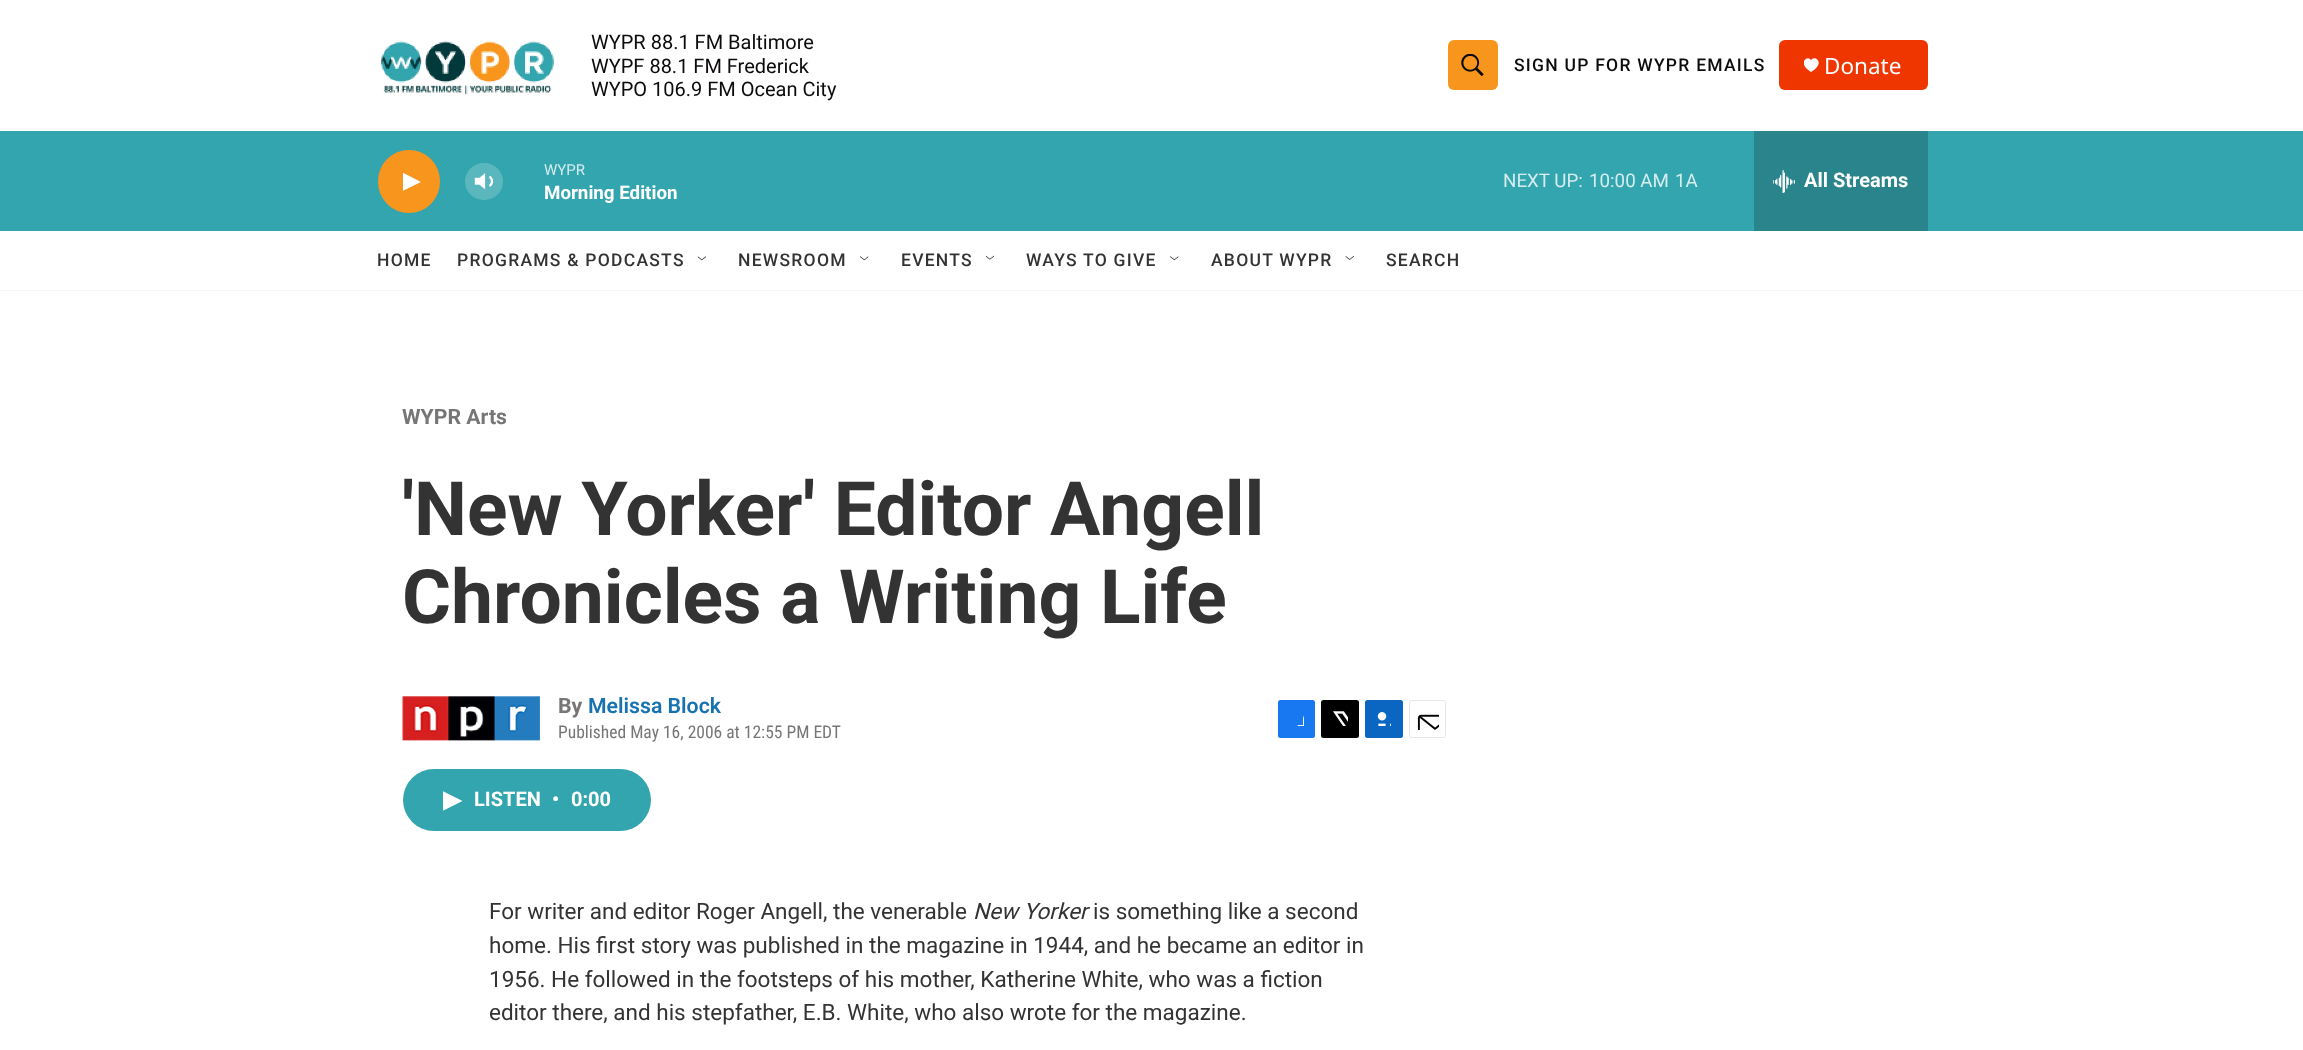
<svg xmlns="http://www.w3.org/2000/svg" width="2303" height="1050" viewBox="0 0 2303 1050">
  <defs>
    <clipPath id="clip1"><rect x="1804" y="58" width="15" height="15"/></clipPath>
    <clipPath id="clip2"><rect x="403" y="170" width="18" height="24"/></clipPath>
    <clipPath id="clip3"><rect x="443" y="791" width="20" height="20"/></clipPath>
  </defs>
  <rect width="100%" height="100%" fill="rgb(255,255,255)"/>
  <rect x="0" y="290" width="2303" height="1" fill="rgb(245,245,245)"/>
  <image x="381" y="41" width="173" height="54" href="pic1.png"/>
  <g font-family="Roboto" font-size="20" fill="rgb(13,11,11)">
    <text>
      <tspan x="591" y="49">WYPR 88.1 FM Baltimore</tspan>
      <tspan x="591" y="73">WYPF 88.1 FM Frederick</tspan>
      <tspan x="591" y="96">WYPO 106.9 FM Ocean City</tspan>
    </text>
  </g>
  <rect x="1448" y="40" width="50" height="50" rx="6" fill="rgb(248,149,29)"/>
  <image x="1461" y="54" width="23" height="22" href="pic2.png"/>
  <text x="1514" y="71" font-family="Roboto" font-size="17.5" font-weight="500" letter-spacing="1.25" fill="rgb(13,11,11)">SIGN UP FOR WYPR EMAILS</text>
  <rect x="1779" y="40" width="149" height="50" rx="6" fill="rgb(239,54,0)"/>
  <g clip-path="url(#clip1)">
    <path d="M1811 60.5C1809 54 1795.5 62.5 1811 72C1827 62.5 1813.5 54 1811 60.5Z" fill="rgb(255,255,255)"/>
  </g>
  <text x="1824" y="74" font-family="Noto Sans" font-size="22.5" fill="rgb(255,255,255)">Donate</text>
  <rect x="0" y="131" width="2303" height="100" fill="rgb(51,165,174)"/>
  <rect x="378" y="150" width="62" height="63" rx="31" fill="rgb(248,149,29)"/>
  <g clip-path="url(#clip2)">
    <path d="M402.5 172.5L421 182L402.5 191Z" fill="rgb(255,255,255)"/>
  </g>
  <image x="474" y="173" width="20" height="17" href="pic3.png"/>
  <rect x="465" y="163" width="38" height="37" rx="18.5" fill="rgba(255,255,255,0.2)"/>
  <text x="544" y="175" font-family="Roboto" font-size="15" fill="rgb(214,237,239)">WYPR</text>
  <text x="544" y="199" font-family="'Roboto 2'" font-size="18.75" font-weight="bold" fill="rgb(255,255,255)">Morning Edition</text>
  <g font-family="Roboto" font-size="18.75" fill="rgb(214,237,239)">
    <text x="1503" y="187">NEXT UP:</text>
    <text x="1589" y="187">10:00 AM</text>
    <text x="1675" y="187">1A</text>
  </g>
  <rect x="1754" y="131" width="174" height="100" fill="rgb(41,132,139)"/>
  <image x="1773" y="170" width="22" height="23" href="pic4.png"/>
  <text x="1804" y="187" font-family="'Roboto 2'" font-size="20" font-weight="bold" fill="rgb(255,255,255)">All Streams</text>
  <g font-family="Roboto" font-size="17.5" font-weight="500" letter-spacing="1.25" fill="rgb(51,51,51)">
    <text x="377" y="266">HOME</text>
    <text x="457" y="266">PROGRAMS &amp; PODCASTS</text>
  </g>
  <image x="697" y="256" width="9" height="5" href="pic5.png"/>
  <text x="738" y="266" font-family="Roboto" font-size="17.5" font-weight="500" letter-spacing="1.25" fill="rgb(51,51,51)">NEWSROOM</text>
  <image x="860" y="256" width="9" height="5" href="pic6.png"/>
  <text x="901" y="266" font-family="Roboto" font-size="17.5" font-weight="500" letter-spacing="1.25" fill="rgb(51,51,51)">EVENTS</text>
  <image x="985" y="255" width="9" height="5" href="pic7.png"/>
  <text x="1026" y="266" font-family="Roboto" font-size="17.5" font-weight="500" letter-spacing="1.25" fill="rgb(51,51,51)">WAYS TO GIVE</text>
  <image x="1170" y="256" width="9" height="5" href="pic8.png"/>
  <text x="1211" y="266" font-family="Roboto" font-size="17.5" font-weight="500" letter-spacing="1.25" fill="rgb(51,51,51)">ABOUT WYPR</text>
  <image x="1345" y="256" width="9" height="4" href="pic9.png"/>
  <text x="1386" y="266" font-family="Roboto" font-size="17.5" font-weight="500" letter-spacing="1.25" fill="rgb(51,51,51)">SEARCH</text>
  <text x="402" y="424" font-family="Roboto" font-size="21.25" font-weight="bold" fill="rgb(118,118,118)">WYPR Arts</text>
  <g font-family="Roboto" font-size="75" font-weight="bold" fill="rgb(51,51,51)">
    <text>
      <tspan x="402" y="535">'New Yorker' Editor Angell</tspan>
      <tspan x="402" y="623">Chronicles a Writing Life</tspan>
    </text>
  </g>
  <image x="402" y="696" width="138" height="45" href="pic10.png"/>
  <text x="558" y="713" font-family="Roboto" font-size="21.25" font-weight="bold" fill="rgb(118,118,118)">By</text>
  <text x="588" y="713" font-family="Roboto" font-size="21.25" font-weight="600" fill="rgb(23,114,176)">Melissa Block</text>
  <text x="558" y="738" font-family="Roboto Condensed" font-size="17.5" fill="rgb(118,118,118)">Published May 16, 2006 at 12:55 PM EDT</text>
  <rect x="1278" y="700" width="37" height="38" rx="2.5" fill="rgb(23,120,242)"/>
  <image x="1297" y="715" width="7" height="11" href="pic11.png"/>
  <rect x="1321" y="700" width="38" height="38" rx="2.5" fill="rgb(0,0,0)"/>
  <image x="1333" y="711" width="15" height="15" href="pic12.png"/>
  <rect x="1365" y="700" width="38" height="38" rx="2.5" fill="rgb(10,102,193)"/>
  <image x="1377" y="712" width="14" height="14" href="pic13.png"/>
  <rect x="1409.5" y="700.5" width="36" height="37" rx="2" fill="none" stroke="rgb(230,230,230)"/>
  <image x="1417" y="714" width="22" height="16" href="pic14.png"/>
  <rect x="403" y="769" width="248" height="62" rx="31" fill="rgb(51,165,174)"/>
  <g clip-path="url(#clip3)">
    <path d="M442.5 791L462.5 801L442.5 811Z" fill="rgb(255,255,255)"/>
  </g>
  <g font-family="'Roboto 2'" font-size="20" font-weight="bold" fill="rgb(255,255,255)">
    <text x="474" y="806">LISTEN</text>
    <text x="552" y="806">•</text>
    <text x="571" y="806">0:00</text>
  </g>
  <text x="489" y="919" font-family="Roboto" font-size="22.5" fill="rgb(51,51,51)">For writer and editor Roger Angell, the venerable</text>
  <text x="973" y="919" font-family="Roboto" font-size="22.5" font-style="italic" fill="rgb(51,51,51)">New Yorker</text>
  <g font-family="Roboto" font-size="22.5" fill="rgb(51,51,51)">
    <text x="1093" y="919">is something like a second</text>
    <text>
      <tspan x="489" y="953">home. His first story was published in the magazine in 1944, and he became an editor in</tspan>
      <tspan x="489" y="987">1956. He followed in the footsteps of his mother, Katherine White, who was a fiction</tspan>
      <tspan x="489" y="1020">editor there, and his stepfather, E.B. White, who also wrote for the magazine.</tspan>
    </text>
  </g>
</svg>
